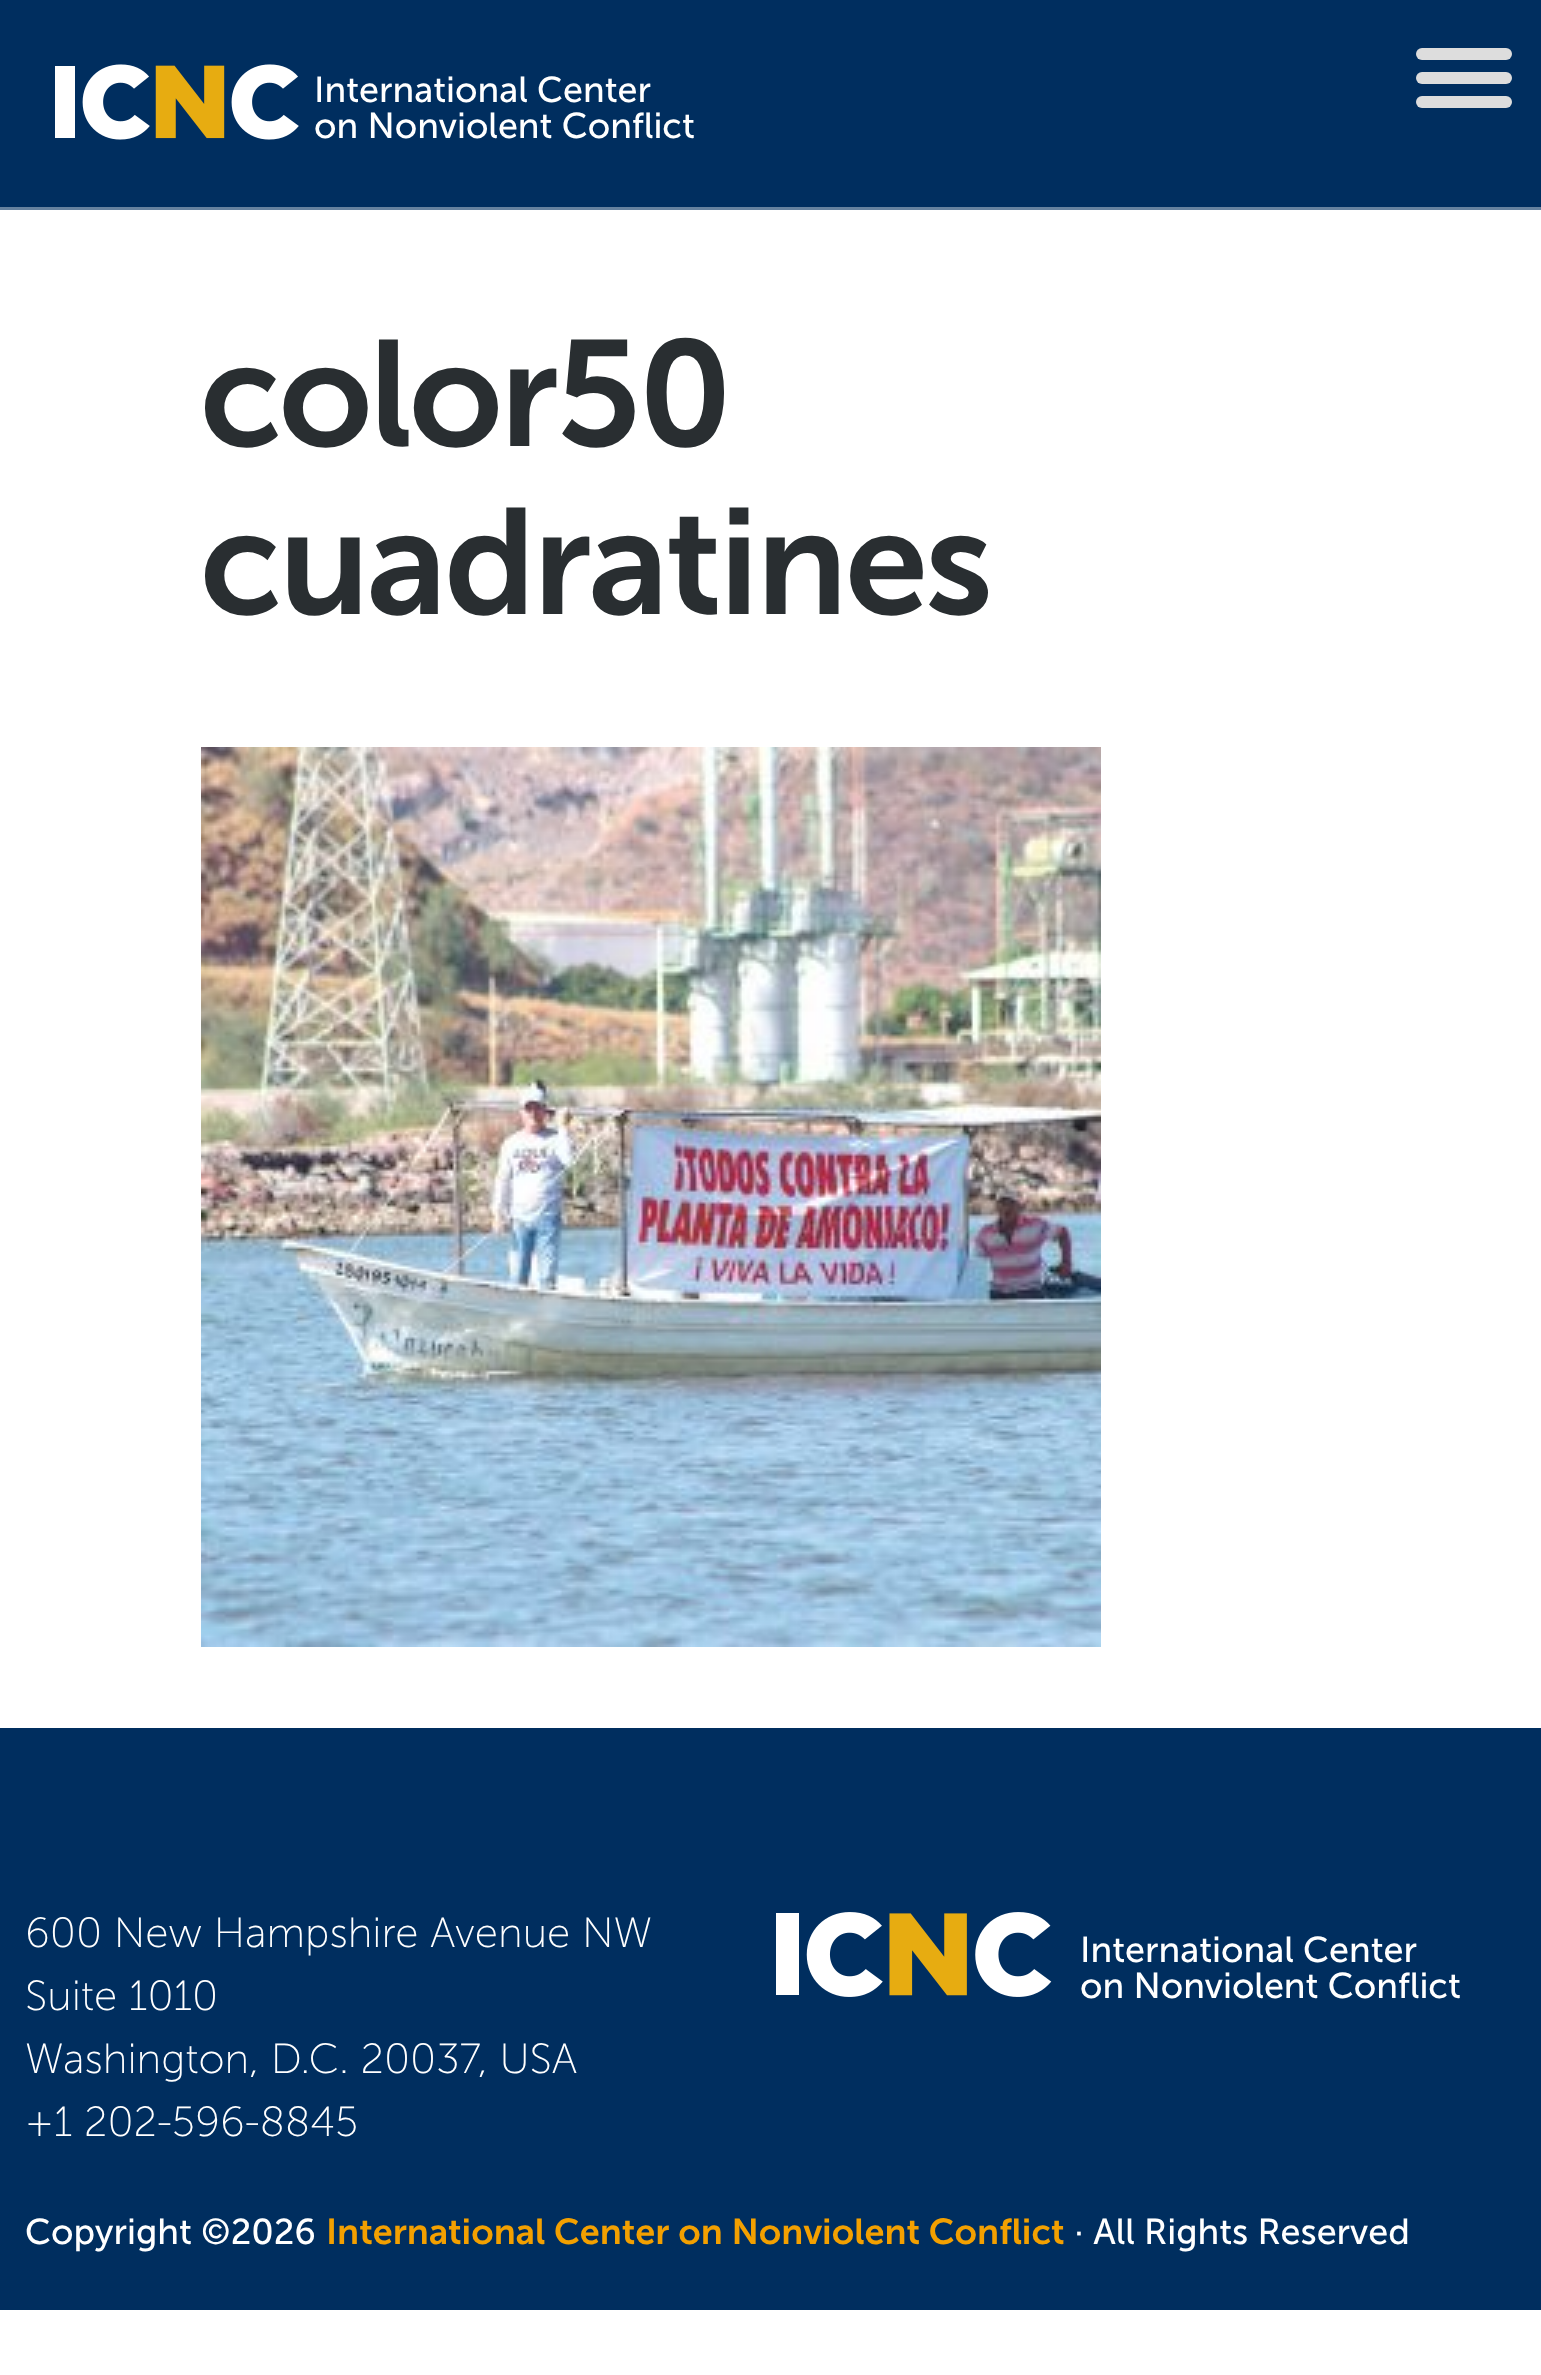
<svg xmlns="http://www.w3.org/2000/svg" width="1541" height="2375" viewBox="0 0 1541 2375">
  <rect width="100%" height="100%" fill="rgb(255,255,255)"/>
  <rect x="0" y="0" width="1541" height="207" fill="rgb(0,46,95)"/>
  <rect x="0" y="207" width="1541" height="3" fill="rgb(102,130,159)"/>
  <image x="55" y="64" width="244" height="76" href="pic1.png"/>
  <g font-family="'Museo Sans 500'" font-size="36" fill="rgb(255,255,255)">
    <text>
      <tspan x="314" y="102">International Center</tspan>
      <tspan x="314" y="138">on Nonviolent Conflict</tspan>
    </text>
  </g>
  <rect x="1416" y="48" width="96" height="12" rx="6" fill="rgb(221,221,221)"/>
  <rect x="1416" y="72" width="96" height="12" rx="6" fill="rgb(221,221,221)"/>
  <rect x="1416" y="96" width="96" height="12" rx="6" fill="rgb(221,221,221)"/>
  <g font-family="'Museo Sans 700'" font-size="150" font-weight="600" letter-spacing="-3" fill="rgb(41,46,49)">
    <text>
      <tspan x="200" y="446">color50</tspan>
      <tspan x="200" y="614">cuadratines</tspan>
    </text>
  </g>
  <image x="201" y="747" width="900" height="900" href="pic2.png"/>
  <rect x="0" y="1728" width="1541" height="582" fill="rgb(0,46,95)"/>
  <g font-family="'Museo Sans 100'" font-size="42" font-weight="300" fill="rgb(255,255,255)">
    <text>
      <tspan x="25" y="1947">600 New Hampshire Avenue NW</tspan>
      <tspan x="25" y="2010">Suite 1010</tspan>
      <tspan x="25" y="2073">Washington, D.C. 20037, USA</tspan>
      <tspan x="25" y="2136">+1 202-596-8845</tspan>
    </text>
  </g>
  <image x="776" y="1912" width="276" height="85" href="pic3.png"/>
  <g font-family="'Museo Sans 500'" font-size="36" fill="rgb(255,255,255)">
    <text>
      <tspan x="1080" y="1962">International Center</tspan>
      <tspan x="1080" y="1998">on Nonviolent Conflict</tspan>
    </text>
    <text x="25" y="2244">Copyright ©2026</text>
  </g>
  <text x="326" y="2244" font-family="'Museo Sans 700'" font-size="36" font-weight="600" fill="rgb(243,160,0)">International Center on Nonviolent Conflict</text>
  <text x="1074" y="2244" font-family="'Museo Sans 500'" font-size="36" fill="rgb(255,255,255)">· All Rights Reserved</text>
</svg>
